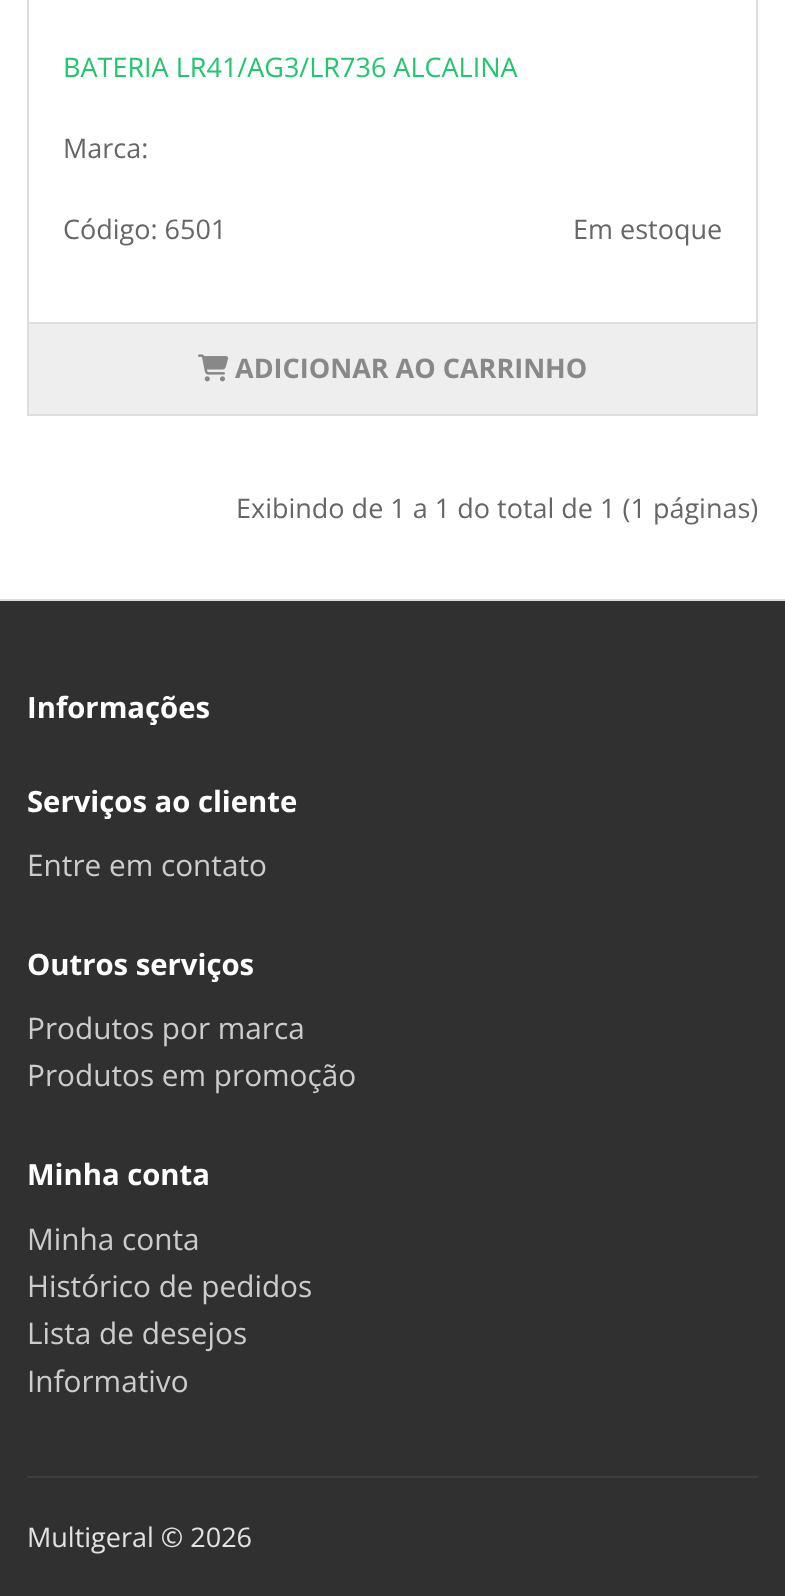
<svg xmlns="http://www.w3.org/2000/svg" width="785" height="1596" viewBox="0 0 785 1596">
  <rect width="100%" height="100%" fill="rgb(255,255,255)"/>
  <rect x="28" y="-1" width="729" height="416" fill="none" stroke="rgb(221,221,221)" stroke-width="2"/>
  <text x="63" y="77" font-family="Open Sans" font-size="27" fill="rgb(33,198,111)">BATERIA LR41/AG3/LR736 ALCALINA</text>
  <g font-family="Open Sans" font-size="27" fill="rgb(102,102,102)">
    <text x="63" y="158">Marca:</text>
    <text x="63" y="239">Código: 6501</text>
    <text x="573" y="239">Em estoque</text>
  </g>
  <rect x="29" y="324" width="727" height="90" fill="rgb(238,238,238)"/>
  <rect x="29" y="322" width="727" height="2" fill="rgb(221,221,221)"/>
  <image x="198" y="354" width="31" height="28" href="pic1.png"/>
  <text x="235" y="378" font-family="Open Sans" font-size="27" font-weight="bold" fill="rgb(136,136,136)">ADICIONAR AO CARRINHO</text>
  <text x="236" y="518" font-family="Open Sans" font-size="27" fill="rgb(102,102,102)">Exibindo de 1 a 1 do total de 1 (1 páginas)</text>
  <rect x="0" y="601" width="785" height="995" fill="rgb(48,48,48)"/>
  <rect x="0" y="599" width="785" height="2" fill="rgb(221,221,221)"/>
  <g font-family="Open Sans" font-size="29.25" font-weight="bold" fill="rgb(255,255,255)">
    <text x="27" y="718">Informações</text>
    <text x="27" y="812">Serviços ao cliente</text>
  </g>
  <text x="27" y="876" font-family="Open Sans" font-size="29.75" fill="rgb(204,204,204)">Entre em contato</text>
  <text x="27" y="975" font-family="Open Sans" font-size="29.25" font-weight="bold" fill="rgb(255,255,255)">Outros serviços</text>
  <g font-family="Open Sans" font-size="29.75" fill="rgb(204,204,204)">
    <text>
      <tspan x="27" y="1039">Produtos por marca</tspan>
      <tspan x="27" y="1086">Produtos em promoção</tspan>
    </text>
  </g>
  <text x="27" y="1185" font-family="Open Sans" font-size="29.25" font-weight="bold" fill="rgb(255,255,255)">Minha conta</text>
  <g font-family="Open Sans" font-size="29.75" fill="rgb(204,204,204)">
    <text>
      <tspan x="27" y="1250">Minha conta</tspan>
      <tspan x="27" y="1297">Histórico de pedidos</tspan>
      <tspan x="27" y="1344">Lista de desejos</tspan>
      <tspan x="27" y="1392">Informativo</tspan>
    </text>
  </g>
  <rect x="27" y="1476" width="731" height="2" fill="rgb(62,62,62)"/>
  <text x="27" y="1547" font-family="Open Sans" font-size="27" fill="rgb(226,226,226)">Multigeral © 2026</text>
</svg>
